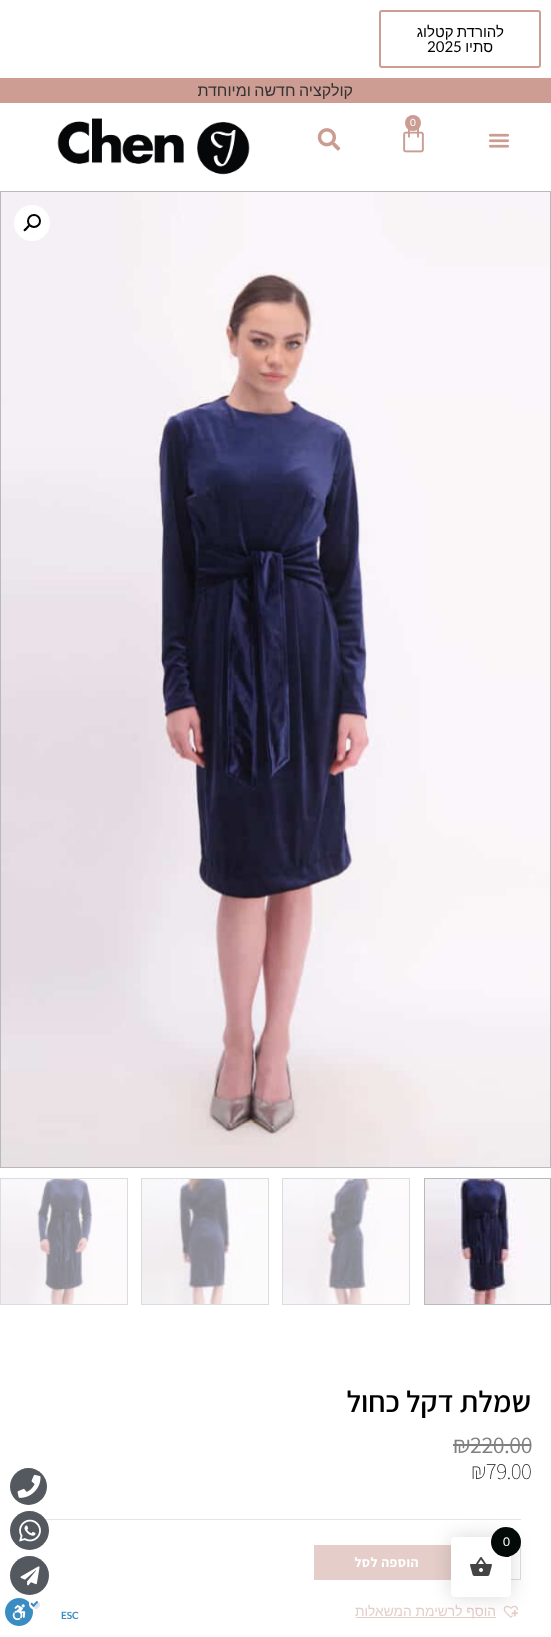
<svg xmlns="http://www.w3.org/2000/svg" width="551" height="1637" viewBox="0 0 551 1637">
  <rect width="100%" height="100%" fill="rgb(255,255,255)"/>
  <rect x="380" y="11" width="160" height="56" rx="2" fill="none" stroke="rgb(205,156,146)" stroke-width="2"/>
  <g font-family="Liberation Sans" font-size="15" direction="rtl" fill="rgb(0,0,0)">
    <text x="504" y="37" word-spacing="-1">להורדת קטלוג</text>
    <text x="493" y="52">סתיו</text>
  </g>
  <text x="427" y="52" font-family="Lato" font-size="15" fill="rgb(0,0,0)">2025</text>
  <rect x="0" y="78" width="551" height="25" fill="rgb(205,156,146)"/>
  <text x="353" y="96" word-spacing="-1" font-family="Liberation Sans" font-size="16" direction="rtl" fill="rgb(51,51,51)">קולקציה חדשה ומיוחדת</text>
  <image x="403" y="128" width="21" height="25" href="pic1.png"/>
  <circle cx="413" cy="123" r="8" fill="rgb(203,156,146)"/>
  <text x="410" y="126" font-family="Lato" font-size="10" fill="rgb(255,255,255)">0</text>
  <image x="57" y="118" width="193" height="57" href="pic2.png"/>
  <image x="489" y="133" width="20" height="15" href="pic3.png"/>
  <image x="317" y="128" width="24" height="23" href="pic4.png"/>
  <rect x="0.5" y="191.5" width="550" height="976" fill="none" stroke="rgb(183,185,188)"/>
  <image x="1" y="192" width="549" height="975" href="pic5.png"/>
  <circle cx="32" cy="223" r="18" fill="rgb(255,255,255)"/>
  <circle cx="34" cy="221" r="6" fill="none" stroke="rgb(0,0,0)" stroke-width="2"/>
  <path d="M29.5 225.5C30.5 226.5 28 228 27.5 229C27 229.5 25 232 24 231C22.5 230 25.5 228 26 227.5C26.5 227 28.5 224 29.5 225.5Z" fill="rgb(0,0,0)"/>
  <rect x="424.5" y="1178.5" width="126" height="126" fill="none" stroke="rgb(183,185,188)"/>
  <image x="425" y="1179" width="125" height="125" href="pic6.png"/>
  <rect x="282.5" y="1178.5" width="127" height="126" fill="none" stroke="rgb(219,220,221)"/>
  <image x="283" y="1179" width="126" height="125" href="pic7.png"/>
  <rect x="141.5" y="1178.5" width="127" height="126" fill="none" stroke="rgb(219,220,221)"/>
  <image x="142" y="1179" width="126" height="125" href="pic8.png"/>
  <rect x="0.5" y="1178.5" width="127" height="126" fill="none" stroke="rgb(219,220,221)"/>
  <image x="1" y="1179" width="126" height="125" href="pic9.png"/>
  <text x="531" y="1412" font-family="Assistant" font-size="30" font-weight="600" direction="rtl" fill="rgb(0,0,0)">שמלת דקל כחול</text>
  <text x="453" y="1453" font-family="Assistant" font-size="24" letter-spacing="-0.5" fill="rgb(128,128,128)">₪220.00</text>
  <rect x="453" y="1444" width="78" height="2" fill="rgb(128,128,128)"/>
  <text x="471" y="1479" font-family="Assistant" font-size="23" font-weight="200" letter-spacing="-0.5" fill="rgb(12,12,12)">₪79.00</text>
  <rect x="45" y="1519" width="476" height="1" fill="rgb(230,230,230)"/>
  <rect x="471.5" y="1545.5" width="49" height="34" fill="none" stroke="rgb(221,221,221)"/>
  <rect x="314" y="1545" width="137" height="35" fill="rgb(229,206,201)"/>
  <text x="419" y="1567" font-family="Assistant" font-size="13.75" font-weight="bold" letter-spacing="0.5" direction="rtl" fill="rgb(255,255,255)">הוספה לסל</text>
  <image x="503" y="1605" width="15" height="13" href="pic10.png"/>
  <rect x="356" y="1617" width="140" height="1" fill="rgb(229,206,201)"/>
  <text x="496" y="1616" font-family="Liberation Sans" font-size="13.75" direction="rtl" fill="rgb(229,206,201)">הוסף לרשימת המשאלות</text>
  <circle cx="28.5" cy="1486.5" r="18.5" fill="rgb(84,89,95)"/>
  <image x="17" y="1474" width="24" height="24" href="pic11.png"/>
  <circle cx="29.5" cy="1530.5" r="19.5" fill="rgb(84,89,95)"/>
  <image x="19" y="1519" width="22" height="23" href="pic12.png"/>
  <circle cx="29.5" cy="1575.5" r="19.5" fill="rgb(84,89,95)"/>
  <image x="20" y="1566" width="20" height="20" href="pic13.png"/>
  <rect x="451" y="1537" width="60" height="60" rx="4" fill="rgba(0,0,0,0.15)" filter="blur(10px)"/>
  <rect x="451" y="1537" width="60" height="60" rx="4" fill="rgb(255,255,255)"/>
  <circle cx="506" cy="1542" r="15" fill="rgb(4,10,8)"/>
  <text x="503" y="1546" font-family="Lato" font-size="12" fill="rgb(255,255,255)">0</text>
  <image x="470" y="1557" width="22" height="19" href="pic14.png"/>
  <text x="61" y="1619" font-family="Lato" font-size="10" font-weight="bold" fill="rgb(58,141,194)">ESC</text>
  <image x="5" y="1598" width="35" height="28" href="pic15.png"/>
</svg>
